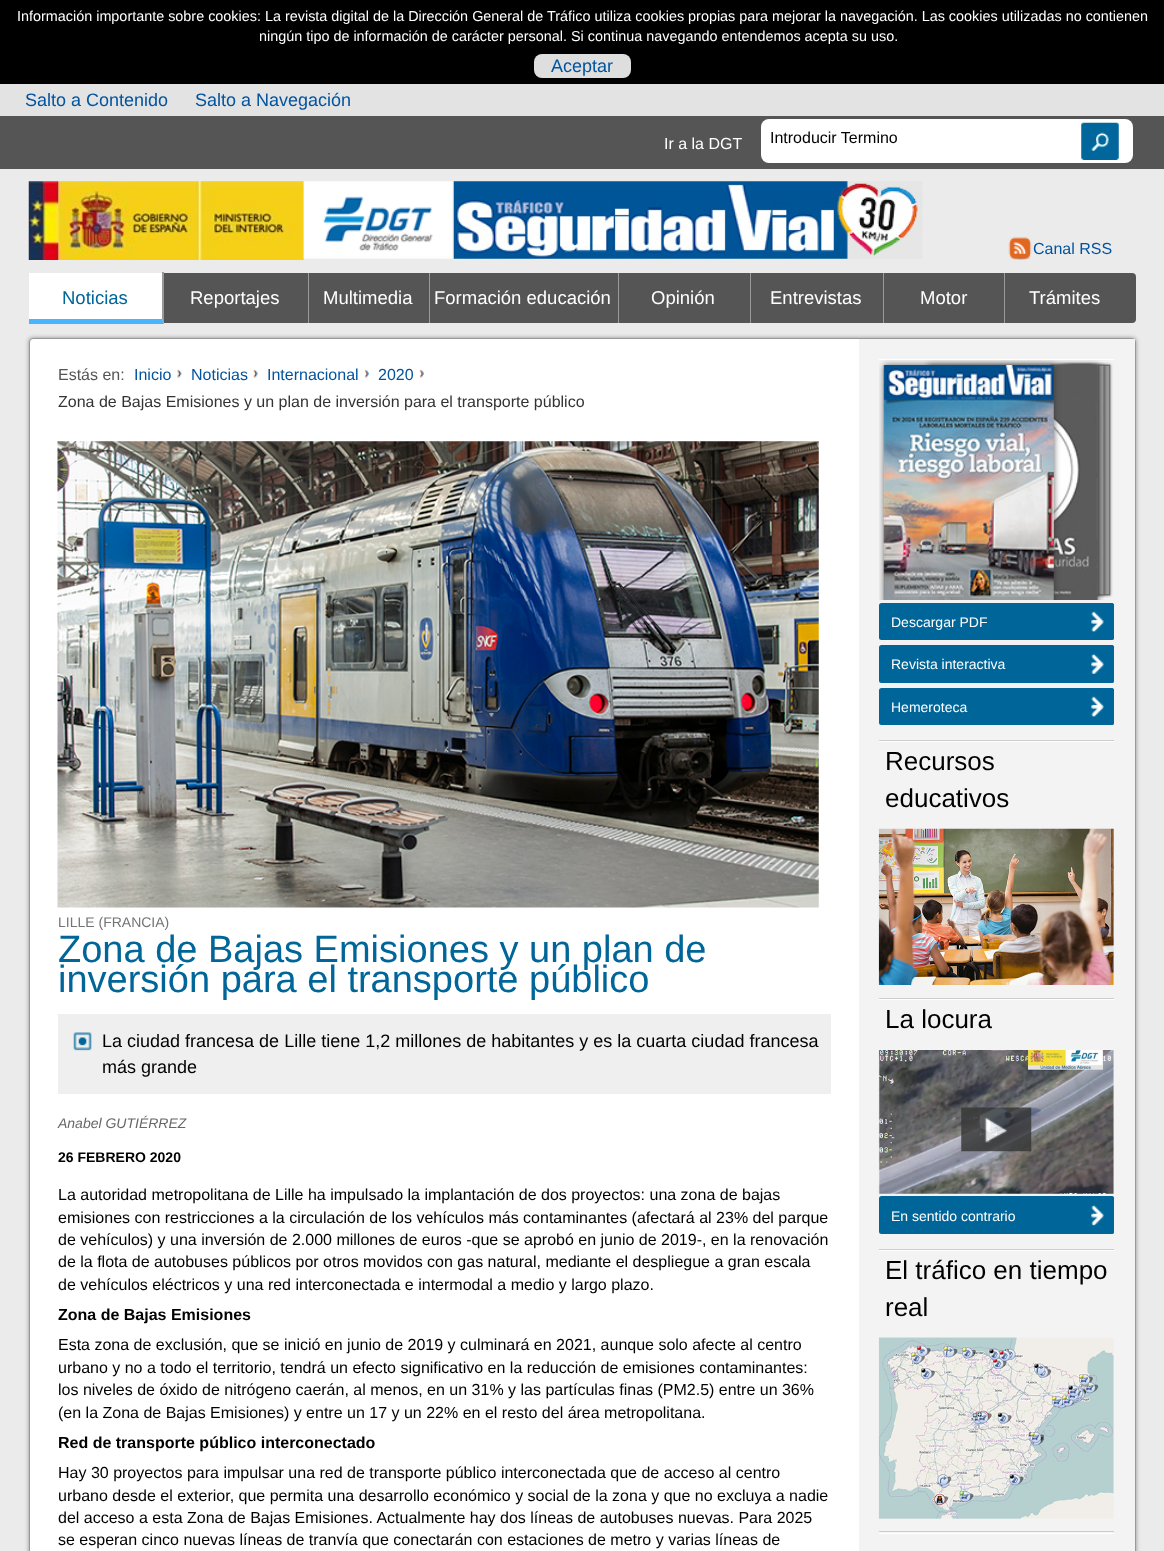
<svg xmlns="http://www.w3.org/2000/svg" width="1164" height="1551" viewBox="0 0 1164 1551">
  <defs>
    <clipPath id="clip1"><rect x="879" y="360" width="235" height="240"/></clipPath>
  </defs>
  <rect width="100%" height="100%" fill="rgb(235,235,235)"/>
  <rect x="0" y="0" width="1164" height="84" fill="rgb(0,0,0)"/>
  <g font-family="Liberation Sans" font-size="14.4" fill="rgb(255,255,255)">
    <text x="17" y="21">Información importante sobre cookies: La revista digital de la Dirección General de Tráfico utiliza cookies propias para mejorar la navegación. Las cookies utilizadas no contienen</text>
    <text x="259" y="41">ningún tipo de información de carácter personal. Si continua navegando entendemos acepta su uso.</text>
  </g>
  <rect x="534" y="54" width="97" height="24" rx="8" fill="rgb(222,222,222)"/>
  <text x="551" y="72" font-family="Liberation Sans" font-size="18" fill="rgb(0,83,159)">Aceptar</text>
  <rect x="0" y="84" width="1164" height="32" fill="rgb(227,227,227)"/>
  <g font-family="Liberation Sans" font-size="18" fill="rgb(0,83,159)">
    <text x="25" y="106">Salto a Contenido</text>
    <text x="195" y="106">Salto a Navegación</text>
  </g>
  <rect x="0" y="116" width="1164" height="53" fill="rgb(85,85,85)"/>
  <text x="664" y="149" font-family="Liberation Sans" font-size="16" fill="rgb(255,255,255)">Ir a la DGT</text>
  <rect x="761" y="119" width="372" height="44" rx="8" fill="rgb(255,255,255)"/>
  <text x="770" y="143" font-family="Liberation Sans" font-size="16" fill="rgb(0,0,0)">Introducir Termino</text>
  <image x="1081" y="122" width="38" height="38" href="pic1.png"/>
  <image x="28" y="181" width="276" height="79" href="pic2.png"/>
  <image x="303" y="181" width="150" height="78" href="pic3.png"/>
  <image x="453" y="181" width="470" height="78" href="pic4.png"/>
  <image x="1008" y="237" width="24" height="23" href="pic5.png"/>
  <text x="1033" y="254" font-family="Liberation Sans" font-size="16" fill="rgb(0,83,159)">Canal RSS</text>
  <rect x="29" y="273" width="1107" height="50" rx="4" fill="rgb(85,85,85)"/>
  <rect x="29" y="273" width="135" height="51" fill="rgb(255,255,255)"/>
  <path d="M164 272V324L162 319V272Z" fill="rgb(153,153,153)"/>
  <path d="M164 324H29V319H162Z" fill="rgb(73,181,252)"/>
  <text x="62" y="304" font-family="Liberation Sans" font-size="18.5" fill="rgb(0,102,153)">Noticias</text>
  <rect x="308" y="273" width="1" height="50" fill="rgb(153,153,153)"/>
  <text x="190" y="304" font-family="Liberation Sans" font-size="18.5" fill="rgb(255,255,255)">Reportajes</text>
  <rect x="429" y="273" width="1" height="50" fill="rgb(153,153,153)"/>
  <text x="323" y="304" font-family="Liberation Sans" font-size="18.5" fill="rgb(255,255,255)">Multimedia</text>
  <rect x="618" y="273" width="1" height="50" fill="rgb(153,153,153)"/>
  <text x="434" y="304" font-family="Liberation Sans" font-size="18.5" fill="rgb(255,255,255)">Formación educación</text>
  <rect x="750" y="273" width="1" height="50" fill="rgb(153,153,153)"/>
  <text x="651" y="304" font-family="Liberation Sans" font-size="18.5" fill="rgb(255,255,255)">Opinión</text>
  <rect x="883" y="273" width="1" height="50" fill="rgb(153,153,153)"/>
  <text x="770" y="304" font-family="Liberation Sans" font-size="18.5" fill="rgb(255,255,255)">Entrevistas</text>
  <rect x="1004" y="273" width="1" height="50" fill="rgb(153,153,153)"/>
  <g font-family="Liberation Sans" font-size="18.5" fill="rgb(255,255,255)">
    <text x="920" y="304">Motor</text>
    <text x="1029" y="304">Trámites</text>
  </g>
  <rect x="29" y="338" width="1107" height="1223" rx="4" fill="rgba(50,50,50,0.5)" filter="blur(2px)"/>
  <rect x="29.5" y="338.5" width="1106" height="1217" rx="3.5" fill="rgb(255,255,255)" stroke="rgb(153,153,153)"/>
  <text x="58" y="380" font-family="Liberation Sans" font-size="16" fill="rgb(85,85,85)">Estás en:</text>
  <image x="176" y="369" width="6" height="9" href="pic6.png"/>
  <text x="134" y="380" font-family="Liberation Sans" font-size="16" fill="rgb(0,83,159)">Inicio</text>
  <image x="253" y="369" width="5" height="9" href="pic7.png"/>
  <text x="191" y="380" font-family="Liberation Sans" font-size="16" fill="rgb(0,83,159)">Noticias</text>
  <image x="364" y="369" width="5" height="9" href="pic8.png"/>
  <text x="267" y="380" font-family="Liberation Sans" font-size="16" fill="rgb(0,83,159)">Internacional</text>
  <image x="419" y="369" width="5" height="9" href="pic8.png"/>
  <text x="378" y="380" font-family="Liberation Sans" font-size="16" fill="rgb(0,83,159)">2020</text>
  <text x="58" y="407" font-family="Liberation Sans" font-size="16" fill="rgb(51,51,51)">Zona de Bajas Emisiones y un plan de inversión para el transporte público</text>
  <image x="57" y="441" width="762" height="467" href="pic9.png"/>
  <text x="58" y="927" font-family="Liberation Sans" font-size="14" fill="rgb(116,116,116)">LILLE (FRANCIA)</text>
  <g font-family="Liberation Sans" font-size="38" fill="rgb(0,102,153)">
    <text>
      <tspan x="58" y="962">Zona de Bajas Emisiones y un plan de</tspan>
      <tspan x="58" y="992">inversión para el transporte público</tspan>
    </text>
  </g>
  <rect x="58" y="1014" width="773" height="80" fill="rgb(239,239,239)"/>
  <image x="73" y="1032" width="19" height="19" href="pic10.png"/>
  <g font-family="Liberation Sans" font-size="18" fill="rgb(0,0,0)">
    <text>
      <tspan x="102" y="1047">La ciudad francesa de Lille tiene 1,2 millones de habitantes y es la cuarta ciudad francesa</tspan>
      <tspan x="102" y="1073">más grande</tspan>
    </text>
  </g>
  <text x="58" y="1128" font-family="Liberation Sans" font-size="14" font-style="italic" fill="rgb(102,102,102)">Anabel GUTIÉRREZ</text>
  <text x="58" y="1162" font-family="Liberation Sans" font-size="14" font-weight="bold" fill="rgb(0,0,0)">26 FEBRERO 2020</text>
  <g font-family="Liberation Sans" font-size="16" fill="rgb(0,0,0)">
    <text>
      <tspan x="58" y="1200">La autoridad metropolitana de Lille ha impulsado la implantación de dos proyectos: una zona de bajas</tspan>
      <tspan x="58" y="1223">emisiones con restricciones a la circulación de los vehículos más contaminantes (afectará al 23% del parque</tspan>
      <tspan x="58" y="1245">de vehículos) y una inversión de 2.000 millones de euros -que se aprobó en junio de 2019-, en la renovación</tspan>
      <tspan x="58" y="1267">de la flota de autobuses públicos por otros movidos con gas natural, mediante el despliegue a gran escala</tspan>
      <tspan x="58" y="1290">de vehículos eléctricos y una red interconectada e intermodal a medio y largo plazo.</tspan>
    </text>
  </g>
  <text x="58" y="1320" font-family="Liberation Sans" font-size="16" font-weight="bold" fill="rgb(0,0,0)">Zona de Bajas Emisiones</text>
  <g font-family="Liberation Sans" font-size="16" fill="rgb(0,0,0)">
    <text>
      <tspan x="58" y="1350">Esta zona de exclusión, que se inició en junio de 2019 y culminará en 2021, aunque solo afecte al centro</tspan>
      <tspan x="58" y="1373">urbano y no a todo el territorio, tendrá un efecto significativo en la reducción de emisiones contaminantes:</tspan>
      <tspan x="58" y="1395">los niveles de óxido de nitrógeno caerán, al menos, en un 31% y las partículas finas (PM2.5) entre un 36%</tspan>
      <tspan x="58" y="1418">(en la Zona de Bajas Emisiones) y entre un 17 y un 22% en el resto del área metropolitana.</tspan>
    </text>
  </g>
  <text x="58" y="1448" font-family="Liberation Sans" font-size="16" font-weight="bold" fill="rgb(0,0,0)">Red de transporte público interconectado</text>
  <g font-family="Liberation Sans" font-size="16" fill="rgb(0,0,0)">
    <text>
      <tspan x="58" y="1478">Hay 30 proyectos para impulsar una red de transporte público interconectada que de acceso al centro</tspan>
      <tspan x="58" y="1501">urbano desde el exterior, que permita una desarrollo económico y social de la zona y que no excluya a nadie</tspan>
      <tspan x="58" y="1523">del acceso a esta Zona de Bajas Emisiones. Actualmente hay dos líneas de autobuses nuevas. Para 2025</tspan>
      <tspan x="58" y="1545">se esperan cinco nuevas líneas de tranvía que conectarán con estaciones de metro y varias líneas de</tspan>
    </text>
  </g>
  <rect x="859" y="339" width="276" height="1212" fill="rgb(243,243,243)"/>
  <rect x="879" y="359" width="235" height="1" fill="rgb(255,255,255)"/>
  <rect x="879" y="740" width="235" height="1" fill="rgb(204,204,204)"/>
  <image x="1049" y="362" width="64" height="236" href="pic11.png"/>
  <rect x="879" y="603" width="235" height="37" rx="2.5" fill="rgb(0,102,153)"/>
  <rect x="1076" y="603" width="38" height="37" rx="2.5" fill="rgb(0,102,153)"/>
  <image x="1091" y="611" width="13" height="21" href="pic14.png"/>
  <g clip-path="url(#clip1)">
    <rect x="928" y="365" width="170" height="240" fill="rgba(50,50,50,0.75)" filter="blur(3px)"/>
  </g>
  <image x="1053" y="365" width="45" height="235" href="pic13.png"/>
  <g clip-path="url(#clip1)">
    <rect x="884" y="365" width="170" height="240" fill="rgba(50,50,50,0.75)" filter="blur(3px)"/>
  </g>
  <image x="883" y="365" width="171" height="235" href="pic12.png"/>
  <text x="891" y="627" font-family="Liberation Sans" font-size="14" fill="rgb(255,255,255)">Descargar PDF</text>
  <rect x="879" y="645" width="235" height="38" rx="2.5" fill="rgb(0,102,153)"/>
  <text x="891" y="669" font-family="Liberation Sans" font-size="14" fill="rgb(255,255,255)">Revista interactiva</text>
  <rect x="1076" y="645" width="38" height="38" rx="2.5" fill="rgb(0,102,153)"/>
  <image x="1091" y="653" width="13" height="21" href="pic15.png"/>
  <rect x="879" y="688" width="235" height="37" rx="2.5" fill="rgb(0,102,153)"/>
  <text x="891" y="712" font-family="Liberation Sans" font-size="14" fill="rgb(255,255,255)">Hemeroteca</text>
  <rect x="1076" y="688" width="38" height="37" rx="2.5" fill="rgb(0,102,153)"/>
  <image x="1091" y="696" width="13" height="21" href="pic14.png"/>
  <rect x="879" y="741" width="235" height="1" fill="rgb(255,255,255)"/>
  <rect x="879" y="998" width="235" height="1" fill="rgb(204,204,204)"/>
  <g font-family="Liberation Sans" font-size="26" fill="rgb(0,0,0)">
    <text>
      <tspan x="885" y="770">Recursos</tspan>
      <tspan x="885" y="807">educativos</tspan>
    </text>
  </g>
  <image x="878" y="828" width="236" height="157" href="pic16.png"/>
  <rect x="879" y="999" width="235" height="1" fill="rgb(255,255,255)"/>
  <rect x="879" y="1249" width="235" height="1" fill="rgb(204,204,204)"/>
  <text x="885" y="1028" font-family="Liberation Sans" font-size="26" fill="rgb(0,0,0)">La locura</text>
  <image x="878" y="1050" width="236" height="144" href="pic17.png"/>
  <image x="961" y="1107" width="71" height="45" href="pic18.png"/>
  <rect x="879" y="1196" width="235" height="38" rx="2.5" fill="rgb(0,102,153)"/>
  <text x="891" y="1221" font-family="Liberation Sans" font-size="14" fill="rgb(255,255,255)">En sentido contrario</text>
  <rect x="1076" y="1196" width="38" height="38" rx="2.5" fill="rgb(0,102,153)"/>
  <image x="1091" y="1205" width="13" height="21" href="pic19.png"/>
  <rect x="879" y="1250" width="235" height="1" fill="rgb(255,255,255)"/>
  <rect x="879" y="1531" width="235" height="1" fill="rgb(204,204,204)"/>
  <g font-family="Liberation Sans" font-size="26" fill="rgb(0,0,0)">
    <text>
      <tspan x="885" y="1279">El tráfico en tiempo</tspan>
      <tspan x="885" y="1316">real</tspan>
    </text>
  </g>
  <image x="878" y="1337" width="236" height="182" href="pic20.png"/>
  <rect x="879" y="1533" width="235" height="1" fill="rgb(255,255,255)"/>
</svg>
